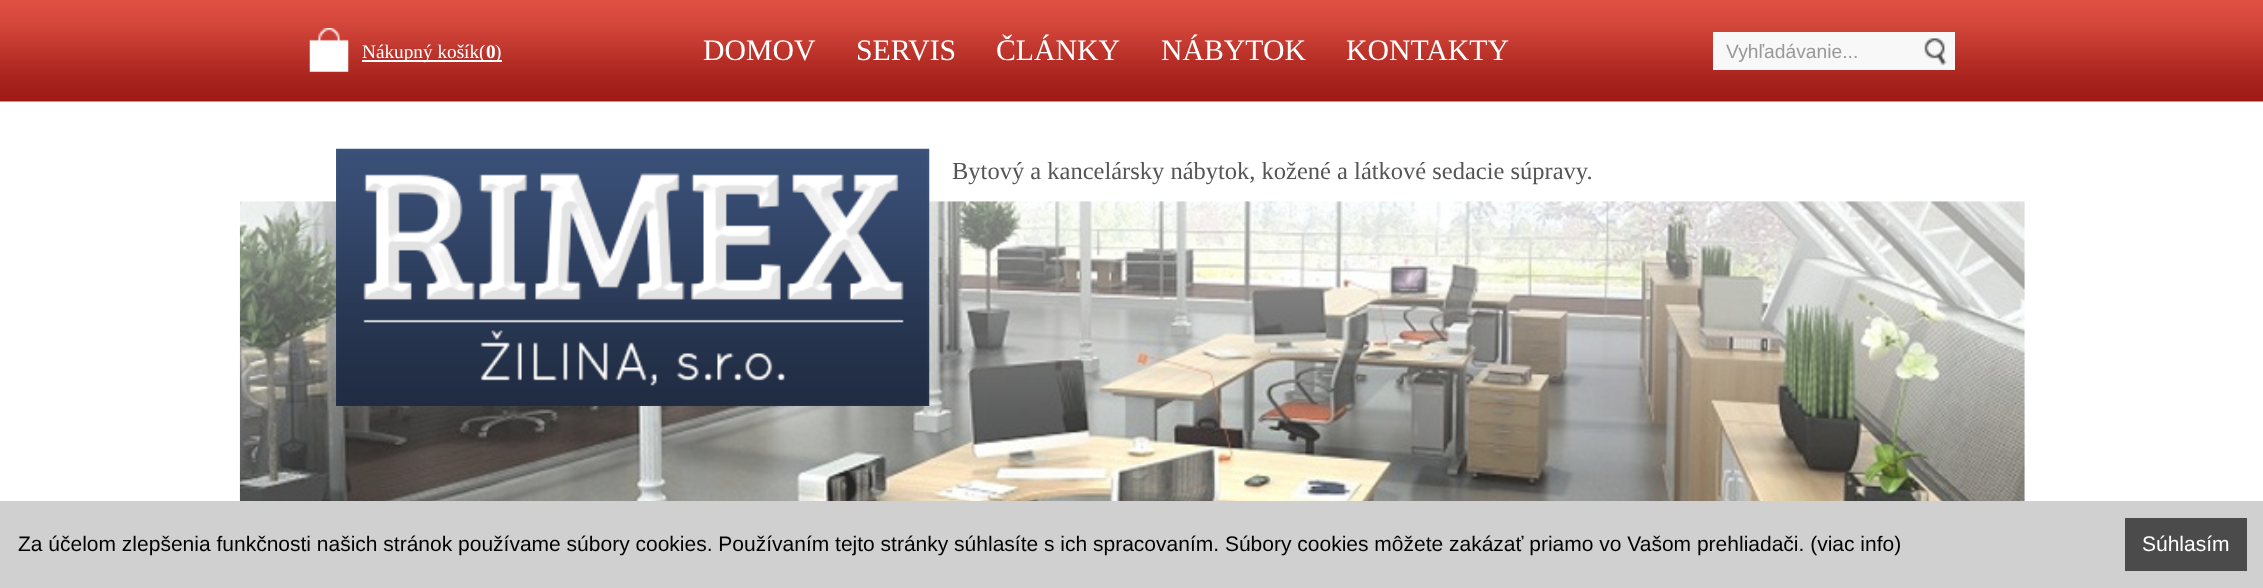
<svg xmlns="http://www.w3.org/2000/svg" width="2263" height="588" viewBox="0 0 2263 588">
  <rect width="100%" height="100%" fill="rgb(255,255,255)"/>
  <image x="0" y="0" width="2263" height="102" href="pic1.png"/>
  <image x="309" y="28" width="40" height="44" href="pic2.png"/>
  <rect x="362" y="60" width="140" height="2" fill="rgb(255,255,255)"/>
  <text x="362" y="58" font-family="Liberation Serif" font-size="19.25" fill="rgb(255,255,255)">Nákupný košík(</text>
  <text x="486" y="58" font-family="Liberation Serif" font-size="19.25" font-weight="bold" fill="rgb(255,255,255)">0</text>
  <text x="495" y="58" font-family="Liberation Serif" font-size="19.25" fill="rgb(255,255,255)">)</text>
  <g font-family="Liberation Serif" font-size="29.75" fill="rgb(255,255,255)">
    <text x="703" y="60">DOMOV</text>
    <text x="856" y="60">SERVIS</text>
    <text x="996" y="60">ČLÁNKY</text>
    <text x="1161" y="60">NÁBYTOK</text>
    <text x="1346" y="60">KONTAKTY</text>
  </g>
  <rect x="1713" y="32" width="242" height="38" fill="rgb(248,248,248)"/>
  <text x="1726" y="58" font-family="Liberation Sans" font-size="19.25" fill="rgb(153,153,153)">Vyhľadávanie...</text>
  <image x="1924" y="38" width="23" height="28" href="pic3.png"/>
  <image x="239" y="201" width="1786" height="300" href="pic5.png"/>
  <image x="336" y="148" width="594" height="258" href="pic4.png"/>
  <text x="952" y="179" font-family="Liberation Serif" font-size="24.5" fill="rgb(85,85,85)">Bytový a kancelársky nábytok, kožené a látkové sedacie súpravy.</text>
  <rect x="0" y="501" width="2263" height="87" fill="rgb(208,208,208)"/>
  <text x="18" y="551" font-family="Liberation Sans" font-size="21" fill="rgb(0,0,0)">Za účelom zlepšenia funkčnosti našich stránok používame súbory cookies. Používaním tejto stránky súhlasíte s ich spracovaním. Súbory cookies môžete zakázať priamo vo Vašom prehliadači. (viac info)</text>
  <rect x="2125" y="518" width="122" height="53" fill="rgb(75,75,75)"/>
  <text x="2142" y="551" font-family="Liberation Sans" font-size="21" fill="rgb(255,255,255)">Súhlasím</text>
</svg>
